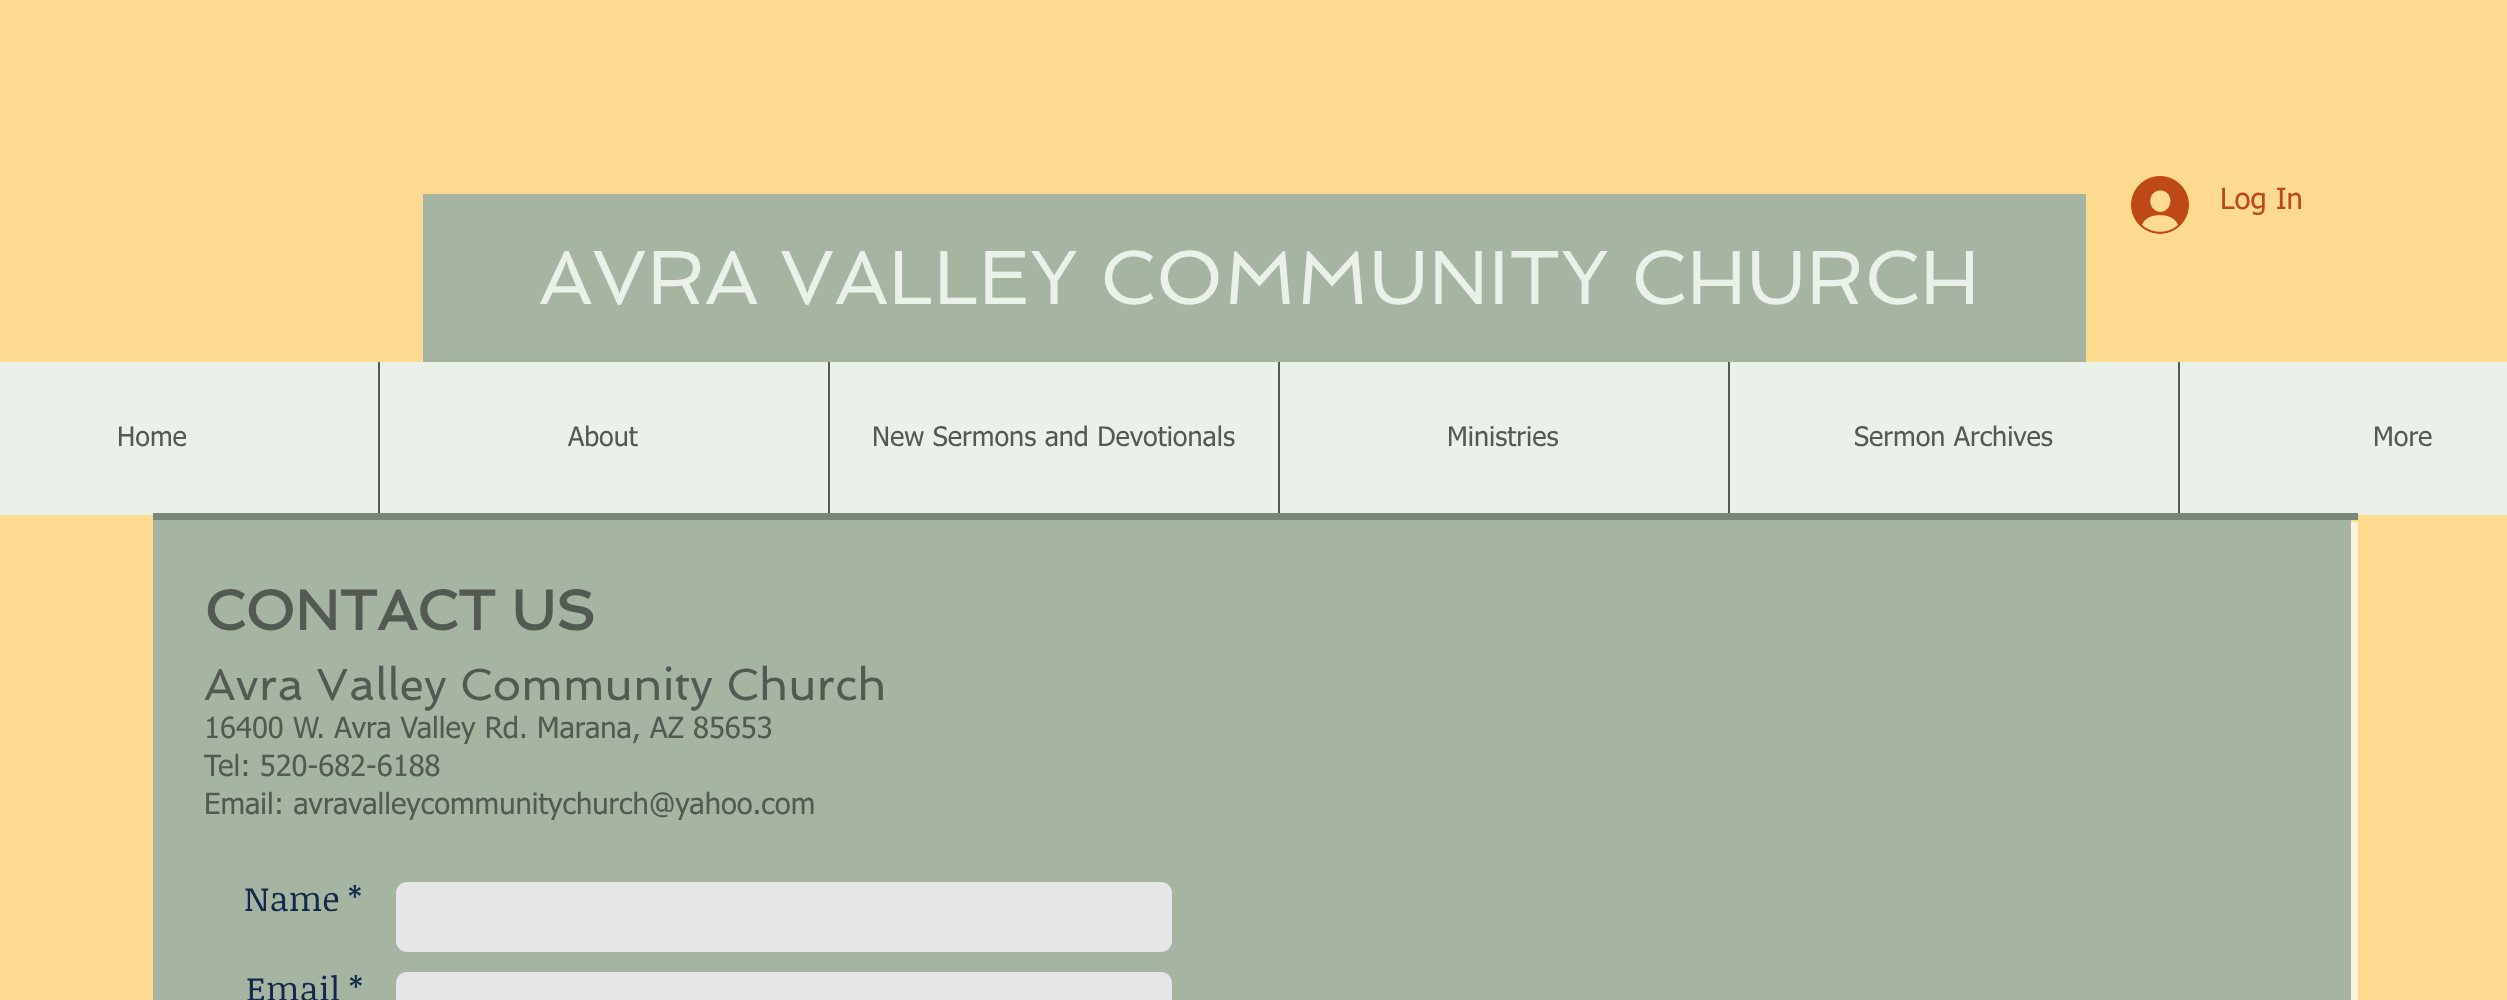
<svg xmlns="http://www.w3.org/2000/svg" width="2507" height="1000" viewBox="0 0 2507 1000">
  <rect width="100%" height="100%" fill="rgb(253,218,143)"/>
  <rect x="423" y="194" width="1663" height="168" fill="rgb(165,181,162)"/>
  <image x="2131" y="176" width="58" height="58" href="pic1.png"/>
  <text x="2220" y="209" font-family="tahoma" font-size="29.25" fill="rgb(191,73,22)">Log In</text>
  <text x="539" y="304" font-family="Spinnaker" font-size="76.5" fill="rgb(234,241,233)">AVRA VALLEY COMMUNITY CHURCH</text>
  <rect x="0" y="362" width="2507" height="153" fill="rgb(234,241,233)"/>
  <text x="117" y="446" font-family="tahoma" font-size="27" fill="rgb(82,90,81)">Home</text>
  <rect x="378" y="362" width="2" height="153" fill="rgb(82,90,81)"/>
  <text x="568" y="446" font-family="tahoma" font-size="27" fill="rgb(82,90,81)">About</text>
  <rect x="828" y="362" width="2" height="153" fill="rgb(82,90,81)"/>
  <text x="872" y="446" font-family="tahoma" font-size="27" fill="rgb(82,90,81)">New Sermons and Devotionals</text>
  <rect x="1278" y="362" width="2" height="153" fill="rgb(82,90,81)"/>
  <text x="1447" y="446" font-family="tahoma" font-size="27" fill="rgb(82,90,81)">Ministries</text>
  <rect x="1728" y="362" width="2" height="153" fill="rgb(82,90,81)"/>
  <text x="1854" y="446" font-family="tahoma" font-size="27" fill="rgb(82,90,81)">Sermon Archives</text>
  <rect x="2178" y="362" width="2" height="153" fill="rgb(82,90,81)"/>
  <text x="2373" y="446" font-family="tahoma" font-size="27" fill="rgb(82,90,81)">More</text>
  <rect x="153" y="513" width="2205" height="7" fill="rgb(123,135,122)"/>
  <rect x="153" y="520" width="2198" height="480" fill="rgb(165,181,162)"/>
  <text x="204" y="630" font-family="Spinnaker" font-size="56.25" font-weight="bold" fill="rgb(82,90,81)">CONTACT US</text>
  <text x="204" y="700" font-family="Spinnaker" font-size="45" fill="rgb(82,90,81)">Avra Valley Community Church</text>
  <g font-family="tahoma" font-size="29.25" fill="rgb(82,90,81)">
    <text>
      <tspan x="204" y="738">16400 W. Avra Valley Rd. Marana, AZ 85653</tspan>
      <tspan x="204" y="776">Tel: 520-682-6188</tspan>
      <tspan x="204" y="814">Email: avravalleycommunitychurch@yahoo.com</tspan>
    </text>
  </g>
  <text x="244" y="911" font-family="Noticia Text" font-size="34" fill="rgb(17,42,75)">Name *</text>
  <rect x="396" y="882" width="776" height="70" rx="11" fill="rgb(230,230,230)"/>
  <text x="246" y="1001" font-family="Noticia Text" font-size="34" fill="rgb(17,42,75)">Email *</text>
  <rect x="396" y="972" width="776" height="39" rx="11" fill="rgb(230,230,230)"/>
  <rect x="2351" y="522" width="7" height="478" fill="rgb(255,243,222)"/>
</svg>
